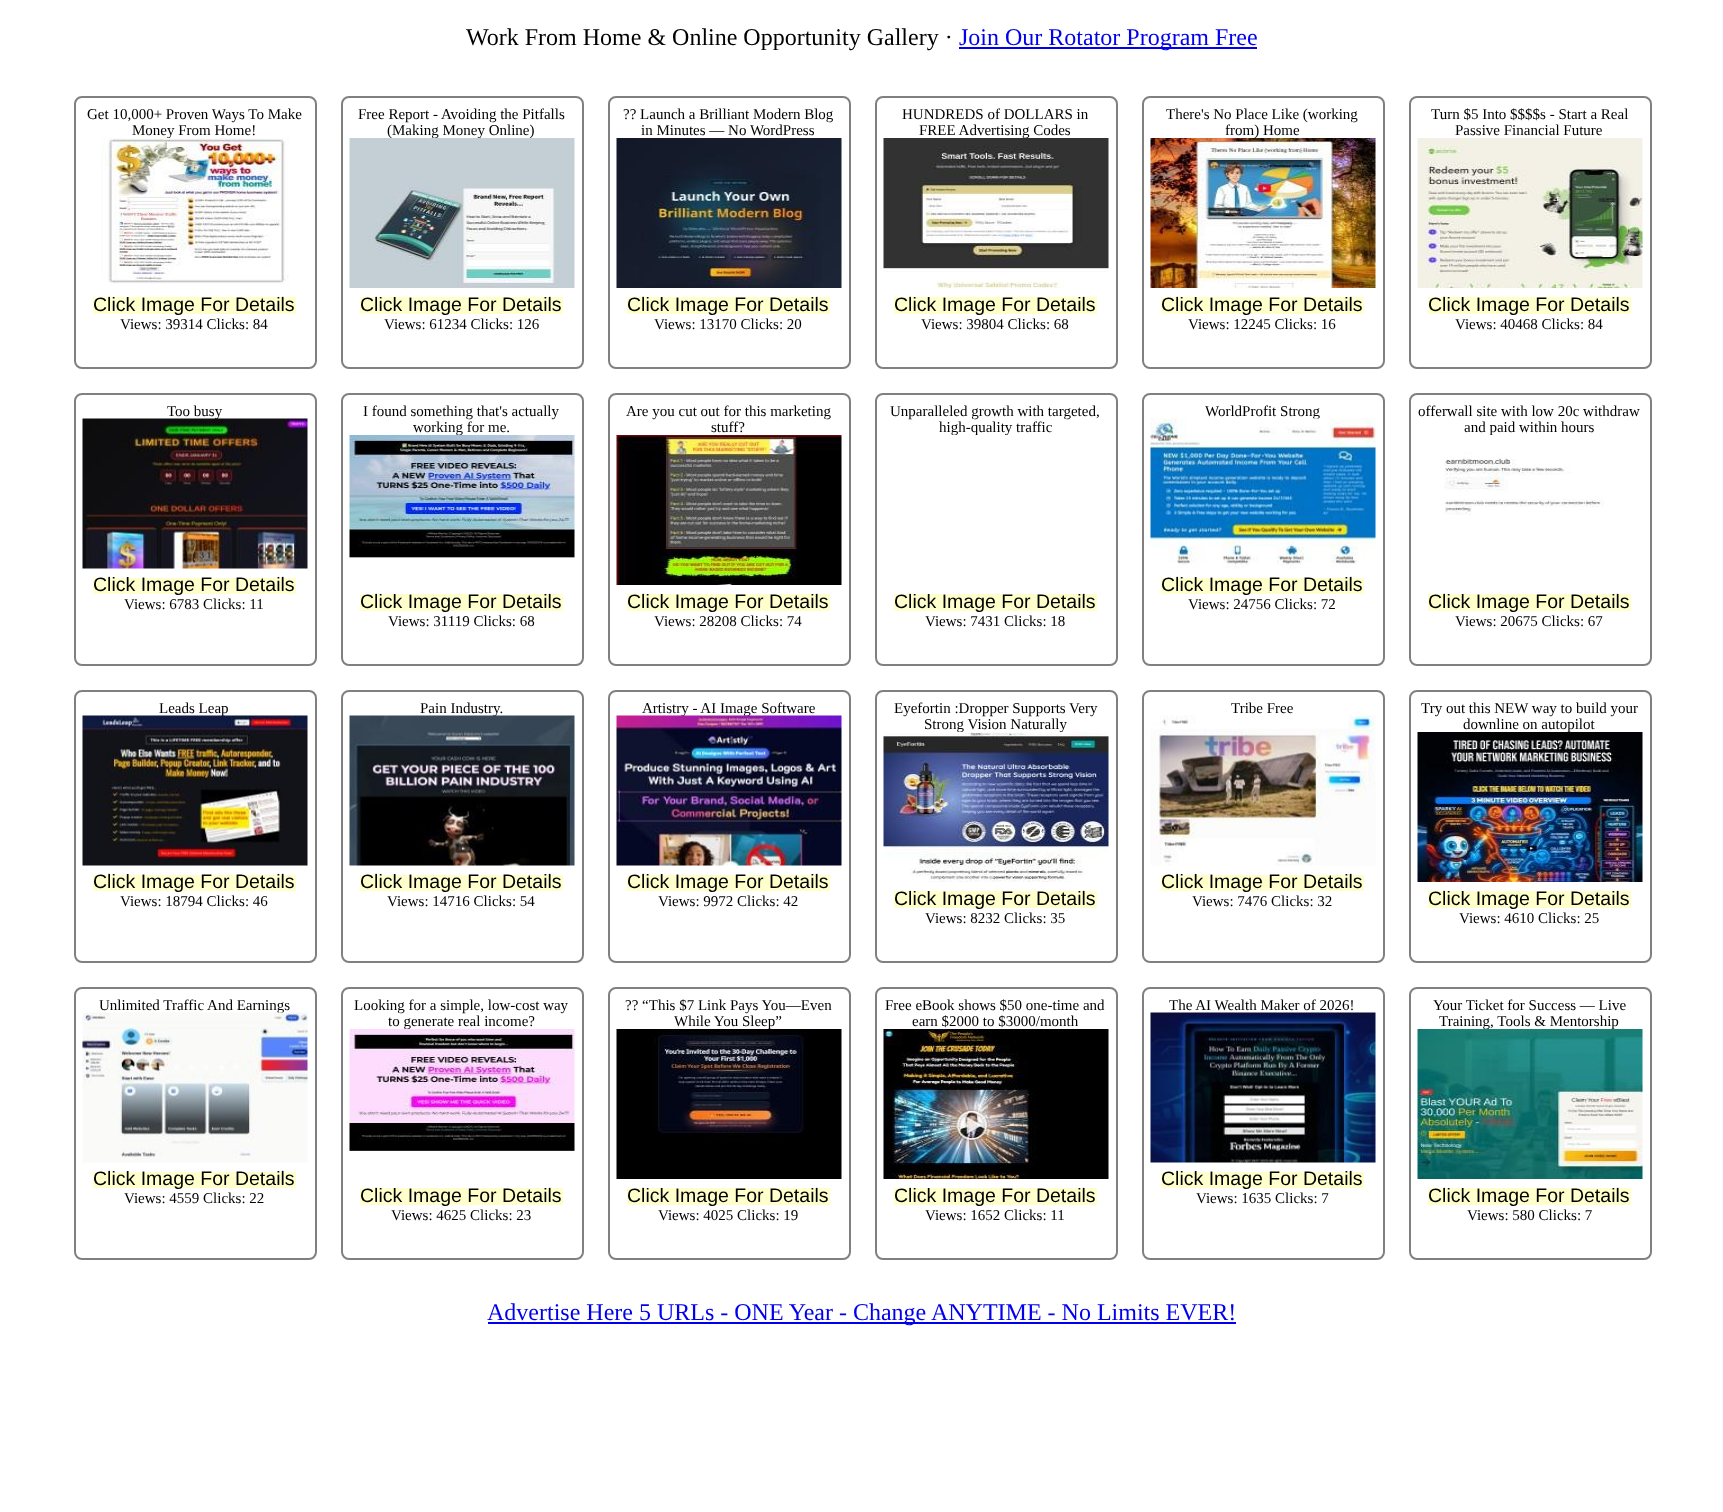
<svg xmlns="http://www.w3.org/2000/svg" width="1723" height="1512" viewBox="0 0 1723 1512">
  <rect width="100%" height="100%" fill="rgb(255,255,255)"/>
  <text x="466" y="45" font-family="Liberation Serif" font-size="24" fill="rgb(0,0,0)">Work From Home &amp; Online Opportunity Gallery ·</text>
  <rect x="959" y="47" width="298" height="2" fill="rgb(0,0,238)"/>
  <text x="959" y="45" font-family="Liberation Serif" font-size="24" fill="rgb(0,0,238)">Join Our Rotator Program Free</text>
  <rect x="75" y="97" width="241" height="271" rx="7" fill="none" stroke="rgb(128,128,128)" stroke-width="2"/>
  <g font-family="Liberation Serif" font-size="15" fill="rgb(0,0,0)">
    <text x="87" y="119">Get 10,000+ Proven Ways To Make</text>
    <text x="132" y="135">Money From Home!</text>
  </g>
  <image x="101" y="138" width="188" height="148" href="pic1.png"/>
  <rect x="93" y="297" width="203" height="17" fill="rgb(255,255,204)"/>
  <text x="93" y="311" font-family="Liberation Sans" font-size="19.5" fill="rgb(0,0,0)">Click Image For Details</text>
  <text x="120" y="329" font-family="Liberation Serif" font-size="15" fill="rgb(0,0,0)">Views: 39314 Clicks: 84</text>
  <rect x="342" y="97" width="241" height="271" rx="7" fill="none" stroke="rgb(128,128,128)" stroke-width="2"/>
  <g font-family="Liberation Serif" font-size="15" fill="rgb(0,0,0)">
    <text x="358" y="119">Free Report - Avoiding the Pitfalls</text>
    <text x="387" y="135">(Making Money Online)</text>
  </g>
  <image x="349" y="138" width="226" height="150" href="pic2.png"/>
  <rect x="360" y="297" width="203" height="17" fill="rgb(255,255,204)"/>
  <text x="360" y="311" font-family="Liberation Sans" font-size="19.5" fill="rgb(0,0,0)">Click Image For Details</text>
  <text x="384" y="329" font-family="Liberation Serif" font-size="15" fill="rgb(0,0,0)">Views: 61234 Clicks: 126</text>
  <rect x="609" y="97" width="241" height="271" rx="7" fill="none" stroke="rgb(128,128,128)" stroke-width="2"/>
  <g font-family="Liberation Serif" font-size="15" fill="rgb(0,0,0)">
    <text x="623" y="119">?? Launch a Brilliant Modern Blog</text>
    <text x="641" y="135">in Minutes — No WordPress</text>
  </g>
  <image x="616" y="138" width="226" height="150" href="pic3.png"/>
  <rect x="627" y="297" width="203" height="17" fill="rgb(255,255,204)"/>
  <text x="627" y="311" font-family="Liberation Sans" font-size="19.5" fill="rgb(0,0,0)">Click Image For Details</text>
  <text x="654" y="329" font-family="Liberation Serif" font-size="15" fill="rgb(0,0,0)">Views: 13170 Clicks: 20</text>
  <rect x="876" y="97" width="241" height="271" rx="7" fill="none" stroke="rgb(128,128,128)" stroke-width="2"/>
  <g font-family="Liberation Serif" font-size="15" fill="rgb(0,0,0)">
    <text x="902" y="119">HUNDREDS of DOLLARS in</text>
    <text x="919" y="135">FREE Advertising Codes</text>
  </g>
  <image x="883" y="138" width="226" height="150" href="pic4.png"/>
  <rect x="894" y="297" width="203" height="17" fill="rgb(255,255,204)"/>
  <text x="894" y="311" font-family="Liberation Sans" font-size="19.5" fill="rgb(0,0,0)">Click Image For Details</text>
  <text x="921" y="329" font-family="Liberation Serif" font-size="15" fill="rgb(0,0,0)">Views: 39804 Clicks: 68</text>
  <rect x="1143" y="97" width="241" height="271" rx="7" fill="none" stroke="rgb(128,128,128)" stroke-width="2"/>
  <g font-family="Liberation Serif" font-size="15" fill="rgb(0,0,0)">
    <text x="1166" y="119">There's No Place Like (working</text>
    <text x="1225" y="135">from) Home</text>
  </g>
  <image x="1150" y="138" width="226" height="150" href="pic5.png"/>
  <rect x="1161" y="297" width="203" height="17" fill="rgb(255,255,204)"/>
  <text x="1161" y="311" font-family="Liberation Sans" font-size="19.5" fill="rgb(0,0,0)">Click Image For Details</text>
  <text x="1188" y="329" font-family="Liberation Serif" font-size="15" fill="rgb(0,0,0)">Views: 12245 Clicks: 16</text>
  <rect x="1410" y="97" width="241" height="271" rx="7" fill="none" stroke="rgb(128,128,128)" stroke-width="2"/>
  <g font-family="Liberation Serif" font-size="15" fill="rgb(0,0,0)">
    <text x="1431" y="119">Turn $5 Into $$$$s - Start a Real</text>
    <text x="1455" y="135">Passive Financial Future</text>
  </g>
  <image x="1417" y="138" width="226" height="150" href="pic6.png"/>
  <rect x="1428" y="297" width="203" height="17" fill="rgb(255,255,204)"/>
  <text x="1428" y="311" font-family="Liberation Sans" font-size="19.5" fill="rgb(0,0,0)">Click Image For Details</text>
  <text x="1455" y="329" font-family="Liberation Serif" font-size="15" fill="rgb(0,0,0)">Views: 40468 Clicks: 84</text>
  <rect x="75" y="394" width="241" height="271" rx="7" fill="none" stroke="rgb(128,128,128)" stroke-width="2"/>
  <text x="167" y="416" font-family="Liberation Serif" font-size="15" fill="rgb(0,0,0)">Too busy</text>
  <image x="82" y="418" width="226" height="151" href="pic7.png"/>
  <rect x="93" y="578" width="203" height="16" fill="rgb(255,255,204)"/>
  <text x="93" y="591" font-family="Liberation Sans" font-size="19.5" fill="rgb(0,0,0)">Click Image For Details</text>
  <text x="124" y="609" font-family="Liberation Serif" font-size="15" fill="rgb(0,0,0)">Views: 6783 Clicks: 11</text>
  <rect x="342" y="394" width="241" height="271" rx="7" fill="none" stroke="rgb(128,128,128)" stroke-width="2"/>
  <g font-family="Liberation Serif" font-size="15" fill="rgb(0,0,0)">
    <text x="363" y="416">I found something that's actually</text>
    <text x="413" y="432">working for me.</text>
  </g>
  <image x="349" y="435" width="226" height="123" href="pic8.png"/>
  <rect x="360" y="594" width="203" height="17" fill="rgb(255,255,204)"/>
  <text x="360" y="608" font-family="Liberation Sans" font-size="19.5" fill="rgb(0,0,0)">Click Image For Details</text>
  <text x="388" y="626" font-family="Liberation Serif" font-size="15" fill="rgb(0,0,0)">Views: 31119 Clicks: 68</text>
  <rect x="609" y="394" width="241" height="271" rx="7" fill="none" stroke="rgb(128,128,128)" stroke-width="2"/>
  <g font-family="Liberation Serif" font-size="15" fill="rgb(0,0,0)">
    <text x="626" y="416">Are you cut out for this marketing</text>
    <text x="711" y="432">stuff?</text>
  </g>
  <image x="616" y="435" width="226" height="150" href="pic9.png"/>
  <rect x="627" y="594" width="203" height="17" fill="rgb(255,255,204)"/>
  <text x="627" y="608" font-family="Liberation Sans" font-size="19.5" fill="rgb(0,0,0)">Click Image For Details</text>
  <text x="654" y="626" font-family="Liberation Serif" font-size="15" fill="rgb(0,0,0)">Views: 28208 Clicks: 74</text>
  <rect x="876" y="394" width="241" height="271" rx="7" fill="none" stroke="rgb(128,128,128)" stroke-width="2"/>
  <g font-family="Liberation Serif" font-size="15" fill="rgb(0,0,0)">
    <text x="890" y="416">Unparalleled growth with targeted,</text>
    <text x="939" y="432">high-quality traffic</text>
  </g>
  <rect x="952" y="435" width="55" height="1" fill="rgb(255,255,255)"/>
  <rect x="894" y="594" width="203" height="17" fill="rgb(255,255,204)"/>
  <text x="894" y="608" font-family="Liberation Sans" font-size="19.5" fill="rgb(0,0,0)">Click Image For Details</text>
  <text x="925" y="626" font-family="Liberation Serif" font-size="15" fill="rgb(0,0,0)">Views: 7431 Clicks: 18</text>
  <rect x="1143" y="394" width="241" height="271" rx="7" fill="none" stroke="rgb(128,128,128)" stroke-width="2"/>
  <text x="1205" y="416" font-family="Liberation Serif" font-size="15" fill="rgb(0,0,0)">WorldProfit Strong</text>
  <image x="1150" y="418" width="226" height="151" href="pic10.png"/>
  <rect x="1161" y="578" width="203" height="16" fill="rgb(255,255,204)"/>
  <text x="1161" y="591" font-family="Liberation Sans" font-size="19.5" fill="rgb(0,0,0)">Click Image For Details</text>
  <text x="1188" y="609" font-family="Liberation Serif" font-size="15" fill="rgb(0,0,0)">Views: 24756 Clicks: 72</text>
  <rect x="1410" y="394" width="241" height="271" rx="7" fill="none" stroke="rgb(128,128,128)" stroke-width="2"/>
  <g font-family="Liberation Serif" font-size="15" fill="rgb(0,0,0)">
    <text x="1418" y="416">offerwall site with low 20c withdraw</text>
    <text x="1464" y="432">and paid within hours</text>
  </g>
  <image x="1444" y="435" width="160" height="80" href="pic11.png"/>
  <rect x="1428" y="594" width="203" height="17" fill="rgb(255,255,204)"/>
  <text x="1428" y="608" font-family="Liberation Sans" font-size="19.5" fill="rgb(0,0,0)">Click Image For Details</text>
  <text x="1455" y="626" font-family="Liberation Serif" font-size="15" fill="rgb(0,0,0)">Views: 20675 Clicks: 67</text>
  <rect x="75" y="691" width="241" height="271" rx="7" fill="none" stroke="rgb(128,128,128)" stroke-width="2"/>
  <text x="159" y="713" font-family="Liberation Serif" font-size="15" fill="rgb(0,0,0)">Leads Leap</text>
  <image x="82" y="715" width="226" height="151" href="pic12.png"/>
  <rect x="93" y="875" width="203" height="16" fill="rgb(255,255,204)"/>
  <text x="93" y="888" font-family="Liberation Sans" font-size="19.5" fill="rgb(0,0,0)">Click Image For Details</text>
  <text x="120" y="906" font-family="Liberation Serif" font-size="15" fill="rgb(0,0,0)">Views: 18794 Clicks: 46</text>
  <rect x="342" y="691" width="241" height="271" rx="7" fill="none" stroke="rgb(128,128,128)" stroke-width="2"/>
  <text x="420" y="713" font-family="Liberation Serif" font-size="15" fill="rgb(0,0,0)">Pain Industry.</text>
  <image x="349" y="715" width="226" height="151" href="pic13.png"/>
  <rect x="360" y="875" width="203" height="16" fill="rgb(255,255,204)"/>
  <text x="360" y="888" font-family="Liberation Sans" font-size="19.5" fill="rgb(0,0,0)">Click Image For Details</text>
  <text x="387" y="906" font-family="Liberation Serif" font-size="15" fill="rgb(0,0,0)">Views: 14716 Clicks: 54</text>
  <rect x="609" y="691" width="241" height="271" rx="7" fill="none" stroke="rgb(128,128,128)" stroke-width="2"/>
  <text x="642" y="713" font-family="Liberation Serif" font-size="15" fill="rgb(0,0,0)">Artistry - AI Image Software</text>
  <image x="616" y="715" width="226" height="151" href="pic14.png"/>
  <rect x="627" y="875" width="203" height="16" fill="rgb(255,255,204)"/>
  <text x="627" y="888" font-family="Liberation Sans" font-size="19.5" fill="rgb(0,0,0)">Click Image For Details</text>
  <text x="658" y="906" font-family="Liberation Serif" font-size="15" fill="rgb(0,0,0)">Views: 9972 Clicks: 42</text>
  <rect x="876" y="691" width="241" height="271" rx="7" fill="none" stroke="rgb(128,128,128)" stroke-width="2"/>
  <g font-family="Liberation Serif" font-size="15" fill="rgb(0,0,0)">
    <text x="894" y="713">Eyefortin :Dropper Supports Very</text>
    <text x="924" y="729">Strong Vision Naturally</text>
  </g>
  <image x="883" y="732" width="226" height="150" href="pic15.png"/>
  <rect x="894" y="891" width="203" height="17" fill="rgb(255,255,204)"/>
  <text x="894" y="905" font-family="Liberation Sans" font-size="19.5" fill="rgb(0,0,0)">Click Image For Details</text>
  <text x="925" y="923" font-family="Liberation Serif" font-size="15" fill="rgb(0,0,0)">Views: 8232 Clicks: 35</text>
  <rect x="1143" y="691" width="241" height="271" rx="7" fill="none" stroke="rgb(128,128,128)" stroke-width="2"/>
  <text x="1231" y="713" font-family="Liberation Serif" font-size="15" fill="rgb(0,0,0)">Tribe Free</text>
  <image x="1150" y="715" width="226" height="151" href="pic16.png"/>
  <rect x="1161" y="875" width="203" height="16" fill="rgb(255,255,204)"/>
  <text x="1161" y="888" font-family="Liberation Sans" font-size="19.5" fill="rgb(0,0,0)">Click Image For Details</text>
  <text x="1192" y="906" font-family="Liberation Serif" font-size="15" fill="rgb(0,0,0)">Views: 7476 Clicks: 32</text>
  <rect x="1410" y="691" width="241" height="271" rx="7" fill="none" stroke="rgb(128,128,128)" stroke-width="2"/>
  <g font-family="Liberation Serif" font-size="15" fill="rgb(0,0,0)">
    <text x="1421" y="713">Try out this NEW way to build your</text>
    <text x="1463" y="729">downline on autopilot</text>
  </g>
  <image x="1417" y="732" width="226" height="150" href="pic17.png"/>
  <rect x="1428" y="891" width="203" height="17" fill="rgb(255,255,204)"/>
  <text x="1428" y="905" font-family="Liberation Sans" font-size="19.5" fill="rgb(0,0,0)">Click Image For Details</text>
  <text x="1459" y="923" font-family="Liberation Serif" font-size="15" fill="rgb(0,0,0)">Views: 4610 Clicks: 25</text>
  <rect x="75" y="988" width="241" height="271" rx="7" fill="none" stroke="rgb(128,128,128)" stroke-width="2"/>
  <text x="99" y="1010" font-family="Liberation Serif" font-size="15" fill="rgb(0,0,0)">Unlimited Traffic And Earnings</text>
  <image x="82" y="1012" width="226" height="151" href="pic18.png"/>
  <rect x="93" y="1172" width="203" height="16" fill="rgb(255,255,204)"/>
  <text x="93" y="1185" font-family="Liberation Sans" font-size="19.5" fill="rgb(0,0,0)">Click Image For Details</text>
  <text x="124" y="1203" font-family="Liberation Serif" font-size="15" fill="rgb(0,0,0)">Views: 4559 Clicks: 22</text>
  <rect x="342" y="988" width="241" height="271" rx="7" fill="none" stroke="rgb(128,128,128)" stroke-width="2"/>
  <g font-family="Liberation Serif" font-size="15" fill="rgb(0,0,0)">
    <text x="354" y="1010">Looking for a simple, low-cost way</text>
    <text x="388" y="1026">to generate real income?</text>
  </g>
  <image x="349" y="1029" width="226" height="122" href="pic19.png"/>
  <rect x="360" y="1188" width="203" height="17" fill="rgb(255,255,204)"/>
  <text x="360" y="1202" font-family="Liberation Sans" font-size="19.5" fill="rgb(0,0,0)">Click Image For Details</text>
  <text x="391" y="1220" font-family="Liberation Serif" font-size="15" fill="rgb(0,0,0)">Views: 4625 Clicks: 23</text>
  <rect x="609" y="988" width="241" height="271" rx="7" fill="none" stroke="rgb(128,128,128)" stroke-width="2"/>
  <g font-family="Liberation Serif" font-size="15" fill="rgb(0,0,0)">
    <text x="625" y="1010">?? “This $7 Link Pays You—Even</text>
    <text x="674" y="1026">While You Sleep”</text>
  </g>
  <image x="616" y="1029" width="226" height="150" href="pic20.png"/>
  <rect x="627" y="1188" width="203" height="17" fill="rgb(255,255,204)"/>
  <text x="627" y="1202" font-family="Liberation Sans" font-size="19.5" fill="rgb(0,0,0)">Click Image For Details</text>
  <text x="658" y="1220" font-family="Liberation Serif" font-size="15" fill="rgb(0,0,0)">Views: 4025 Clicks: 19</text>
  <rect x="876" y="988" width="241" height="271" rx="7" fill="none" stroke="rgb(128,128,128)" stroke-width="2"/>
  <g font-family="Liberation Serif" font-size="15" fill="rgb(0,0,0)">
    <text x="885" y="1010">Free eBook shows $50 one-time and</text>
    <text x="912" y="1026">earn $2000 to $3000/month</text>
  </g>
  <image x="883" y="1029" width="226" height="150" href="pic21.png"/>
  <rect x="894" y="1188" width="203" height="17" fill="rgb(255,255,204)"/>
  <text x="894" y="1202" font-family="Liberation Sans" font-size="19.5" fill="rgb(0,0,0)">Click Image For Details</text>
  <text x="925" y="1220" font-family="Liberation Serif" font-size="15" fill="rgb(0,0,0)">Views: 1652 Clicks: 11</text>
  <rect x="1143" y="988" width="241" height="271" rx="7" fill="none" stroke="rgb(128,128,128)" stroke-width="2"/>
  <text x="1169" y="1010" font-family="Liberation Serif" font-size="15" fill="rgb(0,0,0)">The AI Wealth Maker of 2026!</text>
  <image x="1150" y="1012" width="226" height="151" href="pic22.png"/>
  <rect x="1161" y="1172" width="203" height="16" fill="rgb(255,255,204)"/>
  <text x="1161" y="1185" font-family="Liberation Sans" font-size="19.5" fill="rgb(0,0,0)">Click Image For Details</text>
  <text x="1196" y="1203" font-family="Liberation Serif" font-size="15" fill="rgb(0,0,0)">Views: 1635 Clicks: 7</text>
  <rect x="1410" y="988" width="241" height="271" rx="7" fill="none" stroke="rgb(128,128,128)" stroke-width="2"/>
  <g font-family="Liberation Serif" font-size="15" fill="rgb(0,0,0)">
    <text x="1433" y="1010">Your Ticket for Success — Live</text>
    <text x="1439" y="1026">Training, Tools &amp; Mentorship</text>
  </g>
  <image x="1417" y="1029" width="226" height="150" href="pic23.png"/>
  <rect x="1428" y="1188" width="203" height="17" fill="rgb(255,255,204)"/>
  <text x="1428" y="1202" font-family="Liberation Sans" font-size="19.5" fill="rgb(0,0,0)">Click Image For Details</text>
  <text x="1467" y="1220" font-family="Liberation Serif" font-size="15" fill="rgb(0,0,0)">Views: 580 Clicks: 7</text>
  <rect x="488" y="1322" width="748" height="2" fill="rgb(0,0,238)"/>
  <text x="487" y="1320" font-family="Liberation Serif" font-size="24" fill="rgb(0,0,238)">Advertise Here 5 URLs - ONE Year - Change ANYTIME - No Limits EVER!</text>
</svg>
